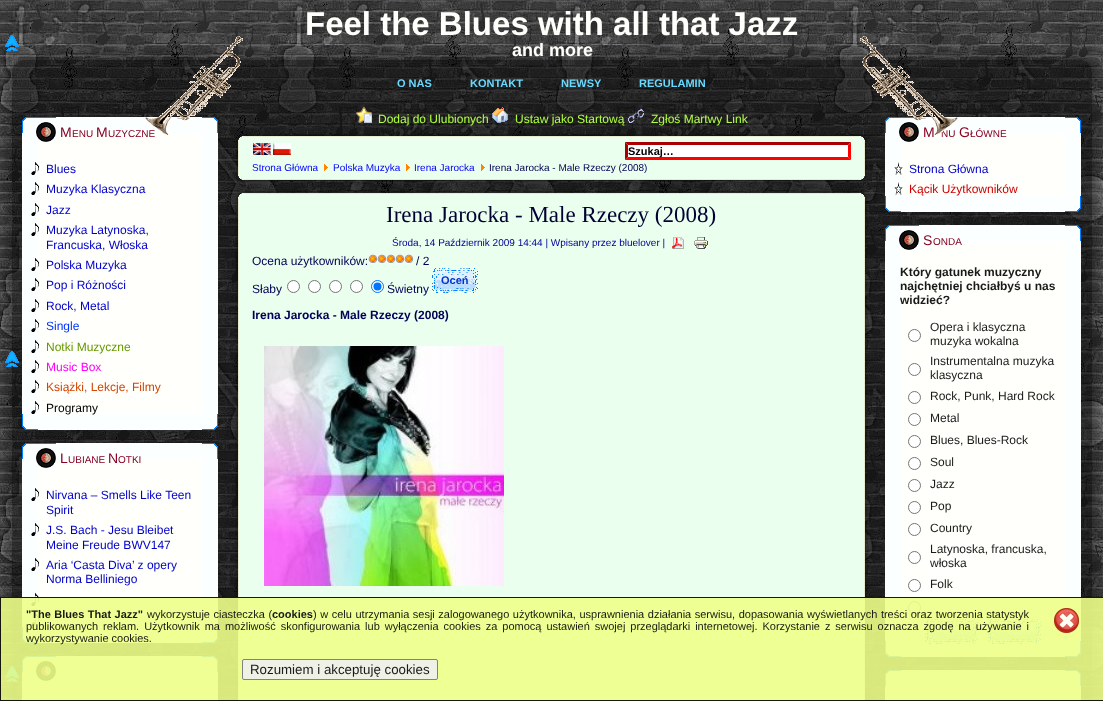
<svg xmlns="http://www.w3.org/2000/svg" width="1103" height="701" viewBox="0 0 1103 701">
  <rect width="100%" height="100%" fill="rgb(255,255,255)"/>
  <image x="0" y="0" width="1103" height="701" href="pic1.png"/>
  <text x="305" y="35" font-family="Liberation Sans" font-size="33" font-weight="bold" fill="rgb(255,255,252)">Feel the Blues with all that Jazz</text>
  <image x="60" y="50" width="983" height="58" href="pic3.png"/>
  <text x="512" y="56" font-family="Liberation Sans" font-size="18" font-weight="bold" fill="rgb(255,255,252)">and more</text>
  <image x="2" y="50" width="58" height="58" href="pic2.png"/>
  <image x="1043" y="50" width="59" height="58" href="pic4.png"/>
  <g font-family="Liberation Sans" font-size="11" font-weight="bold" fill="rgb(103,218,255)">
    <text x="397" y="87">O NAS</text>
    <text x="470" y="87">KONTAKT</text>
    <text x="561" y="87">NEWSY</text>
    <text x="639" y="87">REGULAMIN</text>
  </g>
  <image x="2" y="108" width="58" height="593" href="pic61.png"/>
  <image x="22" y="117" width="14" height="16" href="pic5.png"/>
  <rect x="60" y="108" width="983" height="593" fill="rgba(0,0,0,0.5)"/>
  <rect x="56" y="117" width="146" height="16" fill="rgb(252,255,255)"/>
  <image x="202" y="117" width="16" height="16" href="pic6.png"/>
  <rect x="22" y="133" width="16" height="281" fill="rgb(252,255,255)"/>
  <rect x="38" y="133" width="164" height="281" fill="rgb(255,255,252)"/>
  <image x="36" y="117" width="20" height="25" href="pic7.png"/>
  <text x="60" y="137" font-family="Liberation Sans" font-size="14" fill="rgb(134,0,34)">M</text>
  <text x="72" y="137" font-family="Liberation Sans" font-size="10" fill="rgb(134,0,34)">ENU</text>
  <text x="96" y="137" font-family="Liberation Sans" font-size="14" fill="rgb(134,0,34)">M</text>
  <text x="108" y="137" font-family="Liberation Sans" font-size="10" fill="rgb(134,0,34)">UZYCZNE</text>
  <image x="31" y="162" width="8" height="13" href="pic8.png"/>
  <text x="46" y="173" font-family="Liberation Sans" font-size="12" fill="rgb(0,0,204)">Blues</text>
  <image x="31" y="182" width="8" height="13" href="pic8.png"/>
  <text x="46" y="193" font-family="Liberation Sans" font-size="12" fill="rgb(0,0,204)">Muzyka Klasyczna</text>
  <image x="31" y="203" width="8" height="13" href="pic8.png"/>
  <text x="46" y="214" font-family="Liberation Sans" font-size="12" fill="rgb(0,0,204)">Jazz</text>
  <image x="31" y="223" width="8" height="13" href="pic8.png"/>
  <g font-family="Liberation Sans" font-size="12" fill="rgb(0,0,204)">
    <text>
      <tspan x="46" y="234">Muzyka Latynoska,</tspan>
      <tspan x="46" y="249">Francuska, Włoska</tspan>
    </text>
  </g>
  <image x="31" y="258" width="8" height="13" href="pic8.png"/>
  <text x="46" y="269" font-family="Liberation Sans" font-size="12" fill="rgb(0,0,204)">Polska Muzyka</text>
  <image x="31" y="278" width="8" height="13" href="pic8.png"/>
  <text x="46" y="289" font-family="Liberation Sans" font-size="12" fill="rgb(0,0,204)">Pop i Różności</text>
  <image x="31" y="299" width="8" height="13" href="pic8.png"/>
  <text x="46" y="310" font-family="Liberation Sans" font-size="12" fill="rgb(0,0,204)">Rock, Metal</text>
  <image x="31" y="319" width="8" height="13" href="pic8.png"/>
  <text x="46" y="330" font-family="Liberation Sans" font-size="12" fill="rgb(0,51,255)">Single</text>
  <image x="31" y="340" width="8" height="13" href="pic8.png"/>
  <text x="46" y="351" font-family="Liberation Sans" font-size="12" fill="rgb(102,153,0)">Notki Muzyczne</text>
  <image x="31" y="360" width="8" height="13" href="pic8.png"/>
  <text x="46" y="371" font-family="Liberation Sans" font-size="12" fill="rgb(255,0,255)">Music Box</text>
  <image x="31" y="380" width="8" height="13" href="pic8.png"/>
  <text x="46" y="391" font-family="Liberation Sans" font-size="12" fill="rgb(210,68,0)">Książki, Lekcje, Filmy</text>
  <image x="31" y="401" width="8" height="13" href="pic8.png"/>
  <rect x="38" y="414" width="164" height="16" fill="rgb(252,255,255)"/>
  <text x="46" y="412" font-family="Liberation Sans" font-size="12" fill="rgb(0,0,0)">Programy</text>
  <rect x="202" y="133" width="16" height="281" fill="rgb(252,255,255)"/>
  <image x="22" y="414" width="16" height="16" href="pic9.png"/>
  <image x="202" y="414" width="16" height="16" href="pic10.png"/>
  <image x="22" y="443" width="14" height="16" href="pic11.png"/>
  <rect x="56" y="443" width="146" height="16" fill="rgb(252,255,255)"/>
  <image x="202" y="443" width="16" height="16" href="pic12.png"/>
  <rect x="22" y="459" width="16" height="168" fill="rgb(252,255,255)"/>
  <rect x="38" y="459" width="164" height="168" fill="rgb(255,255,252)"/>
  <image x="36" y="443" width="20" height="25" href="pic7.png"/>
  <text x="60" y="463" font-family="Liberation Sans" font-size="14" fill="rgb(134,0,34)">L</text>
  <text x="68" y="463" font-family="Liberation Sans" font-size="10" fill="rgb(134,0,34)">UBIANE</text>
  <text x="108" y="463" font-family="Liberation Sans" font-size="14" fill="rgb(134,0,34)">N</text>
  <text x="118" y="463" font-family="Liberation Sans" font-size="10" fill="rgb(134,0,34)">OTKI</text>
  <image x="31" y="488" width="8" height="13" href="pic8.png"/>
  <g font-family="Liberation Sans" font-size="12" fill="rgb(0,0,204)">
    <text>
      <tspan x="46" y="499">Nirvana – Smells Like Teen</tspan>
      <tspan x="46" y="514">Spirit</tspan>
    </text>
  </g>
  <image x="31" y="523" width="8" height="13" href="pic8.png"/>
  <g font-family="Liberation Sans" font-size="12" fill="rgb(0,0,204)">
    <text>
      <tspan x="46" y="534">J.S. Bach - Jesu Bleibet</tspan>
      <tspan x="46" y="549">Meine Freude BWV147</tspan>
    </text>
  </g>
  <image x="31" y="558" width="8" height="13" href="pic8.png"/>
  <g font-family="Liberation Sans" font-size="12" fill="rgb(0,0,204)">
    <text>
      <tspan x="46" y="569">Aria ‘Casta Diva’ z opery</tspan>
      <tspan x="46" y="583">Norma Belliniego</tspan>
    </text>
  </g>
  <image x="31" y="593" width="8" height="13" href="pic8.png"/>
  <image x="31" y="613" width="8" height="13" href="pic8.png"/>
  <rect x="202" y="459" width="16" height="168" fill="rgb(252,255,255)"/>
  <image x="22" y="627" width="16" height="16" href="pic13.png"/>
  <rect x="38" y="627" width="164" height="16" fill="rgb(252,255,255)"/>
  <image x="202" y="627" width="16" height="16" href="pic14.png"/>
  <image x="22" y="656" width="14" height="16" href="pic15.png"/>
  <rect x="22" y="672" width="16" height="29" fill="rgb(252,255,255)"/>
  <rect x="38" y="672" width="164" height="29" fill="rgb(255,255,252)"/>
  <image x="36" y="656" width="20" height="25" href="pic7.png"/>
  <rect x="56" y="656" width="146" height="16" fill="rgb(252,255,255)"/>
  <image x="202" y="656" width="16" height="16" href="pic16.png"/>
  <rect x="202" y="672" width="16" height="29" fill="rgb(252,255,255)"/>
  <image x="5" y="35" width="14" height="16" href="pic17.png"/>
  <image x="356" y="107" width="16" height="16" href="pic18.png"/>
  <text x="378" y="123" font-family="Liberation Sans" font-size="12" fill="rgb(175,255,64)">Dodaj do Ulubionych</text>
  <image x="492" y="107" width="16" height="16" href="pic19.png"/>
  <text x="515" y="123" font-family="Liberation Sans" font-size="12" fill="rgb(175,255,64)">Ustaw jako Startową</text>
  <image x="628" y="109" width="16" height="14" href="pic20.png"/>
  <text x="651" y="123" font-family="Liberation Sans" font-size="12" fill="rgb(175,255,64)">Zgłoś Martwy Link</text>
  <image x="5" y="351" width="14" height="16" href="pic21.png"/>
  <image x="5" y="666" width="14" height="16" href="pic22.png"/>
  <image x="236" y="134" width="18" height="18" href="pic23.png"/>
  <image x="254" y="133" width="595" height="19" href="pic24.png"/>
  <image x="849" y="134" width="18" height="18" href="pic25.png"/>
  <image x="236" y="152" width="18" height="12" href="pic26.png"/>
  <rect x="254" y="152" width="595" height="12" fill="rgb(235,255,239)"/>
  <image x="253" y="143" width="18" height="12" href="pic27.png"/>
  <image x="273" y="143" width="18" height="12" href="pic28.png"/>
  <image x="849" y="152" width="18" height="12" href="pic30.png"/>
  <rect x="625" y="142" width="226" height="18" fill="rgb(255,255,255)"/>
  <path d="M625 142H851L848 145H628Z" fill="rgb(170,0,0)"/>
  <path d="M851 142V160L848 157V145Z" fill="rgb(255,0,0)"/>
  <path d="M851 160H625L628 157H848Z" fill="rgb(255,0,0)"/>
  <path d="M625 160V142L628 145V157Z" fill="rgb(170,0,0)"/>
  <text x="628" y="155" font-family="Liberation Sans" font-size="11" font-weight="bold" fill="rgb(0,0,0)">Szukaj…</text>
  <image x="236" y="164" width="18" height="19" href="pic31.png"/>
  <image x="254" y="164" width="595" height="19" href="pic32.png"/>
  <text x="252" y="171" font-family="Liberation Sans" font-size="10" fill="rgb(0,0,255)">Strona Główna</text>
  <image x="324" y="164" width="4" height="7" href="pic29.png"/>
  <text x="333" y="171" font-family="Liberation Sans" font-size="10" fill="rgb(0,0,255)">Polska Muzyka</text>
  <image x="406" y="164" width="4" height="7" href="pic29.png"/>
  <text x="414" y="171" font-family="Liberation Sans" font-size="10" fill="rgb(0,0,255)">Irena Jarocka</text>
  <image x="481" y="164" width="4" height="7" href="pic29.png"/>
  <text x="489" y="171" font-family="Liberation Sans" font-size="10" fill="rgb(0,0,85)">Irena Jarocka - Male Rzeczy (2008)</text>
  <image x="849" y="164" width="18" height="18" href="pic33.png"/>
  <image x="235" y="191" width="19" height="18" href="pic34.png"/>
  <image x="254" y="190" width="595" height="19" href="pic35.png"/>
  <image x="849" y="191" width="18" height="18" href="pic36.png"/>
  <image x="235" y="209" width="19" height="492" href="pic37.png"/>
  <rect x="254" y="209" width="595" height="492" fill="rgb(235,255,239)"/>
  <text x="386" y="222" font-family="Liberation Serif" font-size="23" fill="rgb(0,0,51)">Irena Jarocka - Male Rzeczy (2008)</text>
  <text x="392" y="246" font-family="Liberation Sans" font-size="10" fill="rgb(0,0,153)">Środa, 14 Październik 2009 14:44 | Wpisany przez bluelover |</text>
  <image x="672" y="237" width="12" height="12" href="pic38.png"/>
  <image x="694" y="237" width="14" height="12" href="pic39.png"/>
  <text x="252" y="265" font-family="Liberation Sans" font-size="12" fill="rgb(0,0,85)">Ocena użytkowników:</text>
  <image x="368" y="254" width="9" height="10" href="pic40.png"/>
  <image x="377" y="254" width="9" height="10" href="pic40.png"/>
  <image x="386" y="254" width="9" height="10" href="pic40.png"/>
  <image x="395" y="254" width="9" height="10" href="pic40.png"/>
  <image x="404" y="254" width="9" height="10" href="pic40.png"/>
  <g font-family="Liberation Sans" font-size="12" fill="rgb(0,0,85)">
    <text x="416" y="265">/ 2</text>
    <text x="252" y="293">Słaby</text>
  </g>
  <circle cx="293.5" cy="286.5" r="6" fill="rgb(255,255,255)" stroke="rgb(118,118,118)"/>
  <circle cx="314.5" cy="286.5" r="6" fill="rgb(255,255,255)" stroke="rgb(118,118,118)"/>
  <circle cx="335.5" cy="286.5" r="6" fill="rgb(255,255,255)" stroke="rgb(118,118,118)"/>
  <circle cx="356.5" cy="286.5" r="6" fill="rgb(255,255,255)" stroke="rgb(118,118,118)"/>
  <circle cx="377.5" cy="286.5" r="6" fill="rgb(255,255,255)" stroke="rgb(0,117,255)"/>
  <circle cx="377.5" cy="286.5" r="4" fill="rgb(0,117,255)"/>
  <text x="387" y="293" font-family="Liberation Sans" font-size="12" fill="rgb(0,0,85)">Świetny</text>
  <image x="432" y="268" width="38" height="25" href="pic41.png"/>
  <image x="470" y="268" width="8" height="25" href="pic42.png"/>
  <text x="441" y="284" font-family="Liberation Sans" font-size="11" font-weight="bold" fill="rgb(0,51,204)">Oceń</text>
  <text x="252" y="319" font-family="Liberation Sans" font-size="12" font-weight="bold" fill="rgb(0,0,85)">Irena Jarocka - Male Rzeczy (2008)</text>
  <image x="264" y="346" width="240" height="240" href="pic43.png"/>
  <image x="849" y="209" width="19" height="492" href="pic44.png"/>
  <image x="885" y="117" width="14" height="16" href="pic45.png"/>
  <image x="1043" y="108" width="59" height="593" href="pic62.png"/>
  <rect x="919" y="117" width="146" height="16" fill="rgb(252,255,255)"/>
  <image x="1065" y="117" width="16" height="16" href="pic46.png"/>
  <rect x="885" y="133" width="16" height="63" fill="rgb(252,255,255)"/>
  <rect x="901" y="133" width="164" height="63" fill="rgb(255,255,252)"/>
  <image x="899" y="117" width="20" height="25" href="pic7.png"/>
  <text x="923" y="137" font-family="Liberation Sans" font-size="14" fill="rgb(134,0,34)">M</text>
  <text x="941" y="137" font-family="Liberation Sans" font-size="10" fill="rgb(134,0,34)">NU</text>
  <text x="959" y="137" font-family="Liberation Sans" font-size="14" fill="rgb(134,0,34)">G</text>
  <text x="970" y="137" font-family="Liberation Sans" font-size="10" fill="rgb(134,0,34)">ŁÓWNE</text>
  <image x="894" y="162" width="9" height="13" href="pic47.png"/>
  <text x="909" y="173" font-family="Liberation Sans" font-size="12" fill="rgb(0,0,204)">Strona Główna</text>
  <image x="894" y="182" width="9" height="13" href="pic47.png"/>
  <text x="909" y="193" font-family="Liberation Sans" font-size="12" fill="rgb(204,0,0)">Kącik Użytkowników</text>
  <rect x="1065" y="133" width="16" height="63" fill="rgb(252,255,255)"/>
  <image x="885" y="196" width="16" height="16" href="pic48.png"/>
  <rect x="901" y="196" width="164" height="16" fill="rgb(252,255,255)"/>
  <image x="1065" y="196" width="16" height="16" href="pic49.png"/>
  <image x="885" y="225" width="14" height="16" href="pic50.png"/>
  <rect x="919" y="225" width="146" height="16" fill="rgb(252,255,255)"/>
  <image x="1065" y="225" width="16" height="16" href="pic51.png"/>
  <rect x="885" y="241" width="16" height="400" fill="rgb(252,255,255)"/>
  <rect x="901" y="241" width="164" height="400" fill="rgb(255,255,252)"/>
  <image x="899" y="225" width="20" height="25" href="pic7.png"/>
  <text x="923" y="245" font-family="Liberation Sans" font-size="14" fill="rgb(134,0,34)">S</text>
  <text x="933" y="245" font-family="Liberation Sans" font-size="10" fill="rgb(134,0,34)">ONDA</text>
  <g font-family="Liberation Sans" font-size="12" font-weight="bold" fill="rgb(26,26,26)">
    <text>
      <tspan x="900" y="276">Który gatunek muzyczny</tspan>
      <tspan x="900" y="290">najchętniej chciałbyś u nas</tspan>
      <tspan x="900" y="304">widzieć?</tspan>
    </text>
  </g>
  <circle cx="914.5" cy="335.5" r="6" fill="rgb(255,255,255)" stroke="rgb(118,118,118)"/>
  <g font-family="Liberation Sans" font-size="12" fill="rgb(26,26,26)">
    <text>
      <tspan x="930" y="331">Opera i klasyczna</tspan>
      <tspan x="930" y="345">muzyka wokalna</tspan>
    </text>
  </g>
  <circle cx="914.5" cy="369.5" r="6" fill="rgb(255,255,255)" stroke="rgb(118,118,118)"/>
  <g font-family="Liberation Sans" font-size="12" fill="rgb(26,26,26)">
    <text>
      <tspan x="930" y="365">Instrumentalna muzyka</tspan>
      <tspan x="930" y="379">klasyczna</tspan>
    </text>
  </g>
  <circle cx="914.5" cy="397.5" r="6" fill="rgb(255,255,255)" stroke="rgb(118,118,118)"/>
  <text x="930" y="400" font-family="Liberation Sans" font-size="12" fill="rgb(26,26,26)">Rock, Punk, Hard Rock</text>
  <circle cx="914.5" cy="419.5" r="6" fill="rgb(255,255,255)" stroke="rgb(118,118,118)"/>
  <text x="930" y="422" font-family="Liberation Sans" font-size="12" fill="rgb(26,26,26)">Metal</text>
  <circle cx="914.5" cy="441.5" r="6" fill="rgb(255,255,255)" stroke="rgb(118,118,118)"/>
  <text x="930" y="444" font-family="Liberation Sans" font-size="12" fill="rgb(26,26,26)">Blues, Blues-Rock</text>
  <circle cx="914.5" cy="463.5" r="6" fill="rgb(255,255,255)" stroke="rgb(118,118,118)"/>
  <text x="930" y="466" font-family="Liberation Sans" font-size="12" fill="rgb(26,26,26)">Soul</text>
  <circle cx="914.5" cy="485.5" r="6" fill="rgb(255,255,255)" stroke="rgb(118,118,118)"/>
  <text x="930" y="488" font-family="Liberation Sans" font-size="12" fill="rgb(26,26,26)">Jazz</text>
  <circle cx="914.5" cy="507.5" r="6" fill="rgb(255,255,255)" stroke="rgb(118,118,118)"/>
  <text x="930" y="510" font-family="Liberation Sans" font-size="12" fill="rgb(26,26,26)">Pop</text>
  <circle cx="914.5" cy="529.5" r="6" fill="rgb(255,255,255)" stroke="rgb(118,118,118)"/>
  <text x="930" y="532" font-family="Liberation Sans" font-size="12" fill="rgb(26,26,26)">Country</text>
  <circle cx="914.5" cy="557.5" r="6" fill="rgb(255,255,255)" stroke="rgb(118,118,118)"/>
  <g font-family="Liberation Sans" font-size="12" fill="rgb(26,26,26)">
    <text>
      <tspan x="930" y="553">Latynoska, francuska,</tspan>
      <tspan x="930" y="567">włoska</tspan>
    </text>
  </g>
  <circle cx="914.5" cy="585.5" r="6" fill="rgb(255,255,255)" stroke="rgb(118,118,118)"/>
  <text x="930" y="588" font-family="Liberation Sans" font-size="12" fill="rgb(26,26,26)">Folk</text>
  <circle cx="914.5" cy="607.5" r="6" fill="rgb(255,255,255)" stroke="rgb(118,118,118)"/>
  <rect x="901" y="641" width="164" height="16" fill="rgb(252,255,255)"/>
  <image x="925" y="619" width="45" height="25" href="pic52.png"/>
  <image x="970" y="619" width="8" height="25" href="pic53.png"/>
  <image x="988" y="619" width="45" height="25" href="pic54.png"/>
  <image x="1033" y="619" width="8" height="25" href="pic53.png"/>
  <rect x="1065" y="241" width="16" height="400" fill="rgb(252,255,255)"/>
  <image x="885" y="641" width="16" height="16" href="pic55.png"/>
  <image x="1065" y="641" width="16" height="16" href="pic56.png"/>
  <image x="885" y="670" width="16" height="16" href="pic57.png"/>
  <rect x="901" y="670" width="164" height="16" fill="rgb(252,255,255)"/>
  <image x="1065" y="670" width="16" height="16" href="pic58.png"/>
  <rect x="885" y="686" width="16" height="15" fill="rgb(252,255,255)"/>
  <rect x="901" y="686" width="164" height="15" fill="rgb(255,255,252)"/>
  <rect x="1065" y="686" width="16" height="15" fill="rgb(252,255,255)"/>
  <image x="898" y="699" width="1" height="2" href="pic59.png"/>
  <rect x="0" y="597" width="1103" height="104" fill="rgba(238,255,136,0.9)"/>
  <rect x="0.5" y="597.5" width="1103" height="103" fill="none" stroke="rgba(0,0,0,0.9)"/>
  <text x="26" y="618" word-spacing="0.5" font-family="Liberation Sans" font-size="11" font-weight="bold" fill="rgb(24,25,15)">"The Blues That Jazz"</text>
  <text x="147" y="618" word-spacing="0.5" font-family="Liberation Sans" font-size="11" fill="rgb(24,25,15)">wykorzystuje ciasteczka (</text>
  <text x="272" y="618" font-family="Liberation Sans" font-size="11" font-weight="bold" fill="rgb(26,26,26)">cookies</text>
  <g font-family="Liberation Sans" font-size="11" fill="rgb(24,25,15)">
    <text x="313" y="618" word-spacing="0.5">) w celu utrzymania sesji zalogowanego użytkownika, usprawnienia działania serwisu, dopasowania wyświetlanych treści oraz tworzenia statystyk</text>
    <text>
      <tspan x="26" y="630" word-spacing="1.9">publikowanych reklam. Użytkownik ma możliwość skonfigurowania lub wyłączenia cookies za pomocą ustawień swojej przeglądarki internetowej. Korzystanie z serwisu oznacza zgodę na używanie i</tspan>
      <tspan x="26" y="642">wykorzystywanie cookies.</tspan>
    </text>
  </g>
  <rect x="242" y="659" width="196" height="21" rx="2" fill="rgba(239,239,239,0.9)"/>
  <rect x="242.5" y="659.5" width="195" height="20" rx="1.5" fill="none" stroke="rgba(118,118,118,0.9)"/>
  <text x="250" y="674" font-family="Liberation Sans" font-size="13.3" fill="rgb(26,26,26)">Rozumiem i akceptuję cookies</text>
  <image x="1054" y="608" width="25" height="25" href="pic60.png"/>
  <image x="145" y="36" width="98" height="99" href="pic63.png"/>
  <image x="860" y="36" width="98" height="99" href="pic64.png"/>
</svg>
